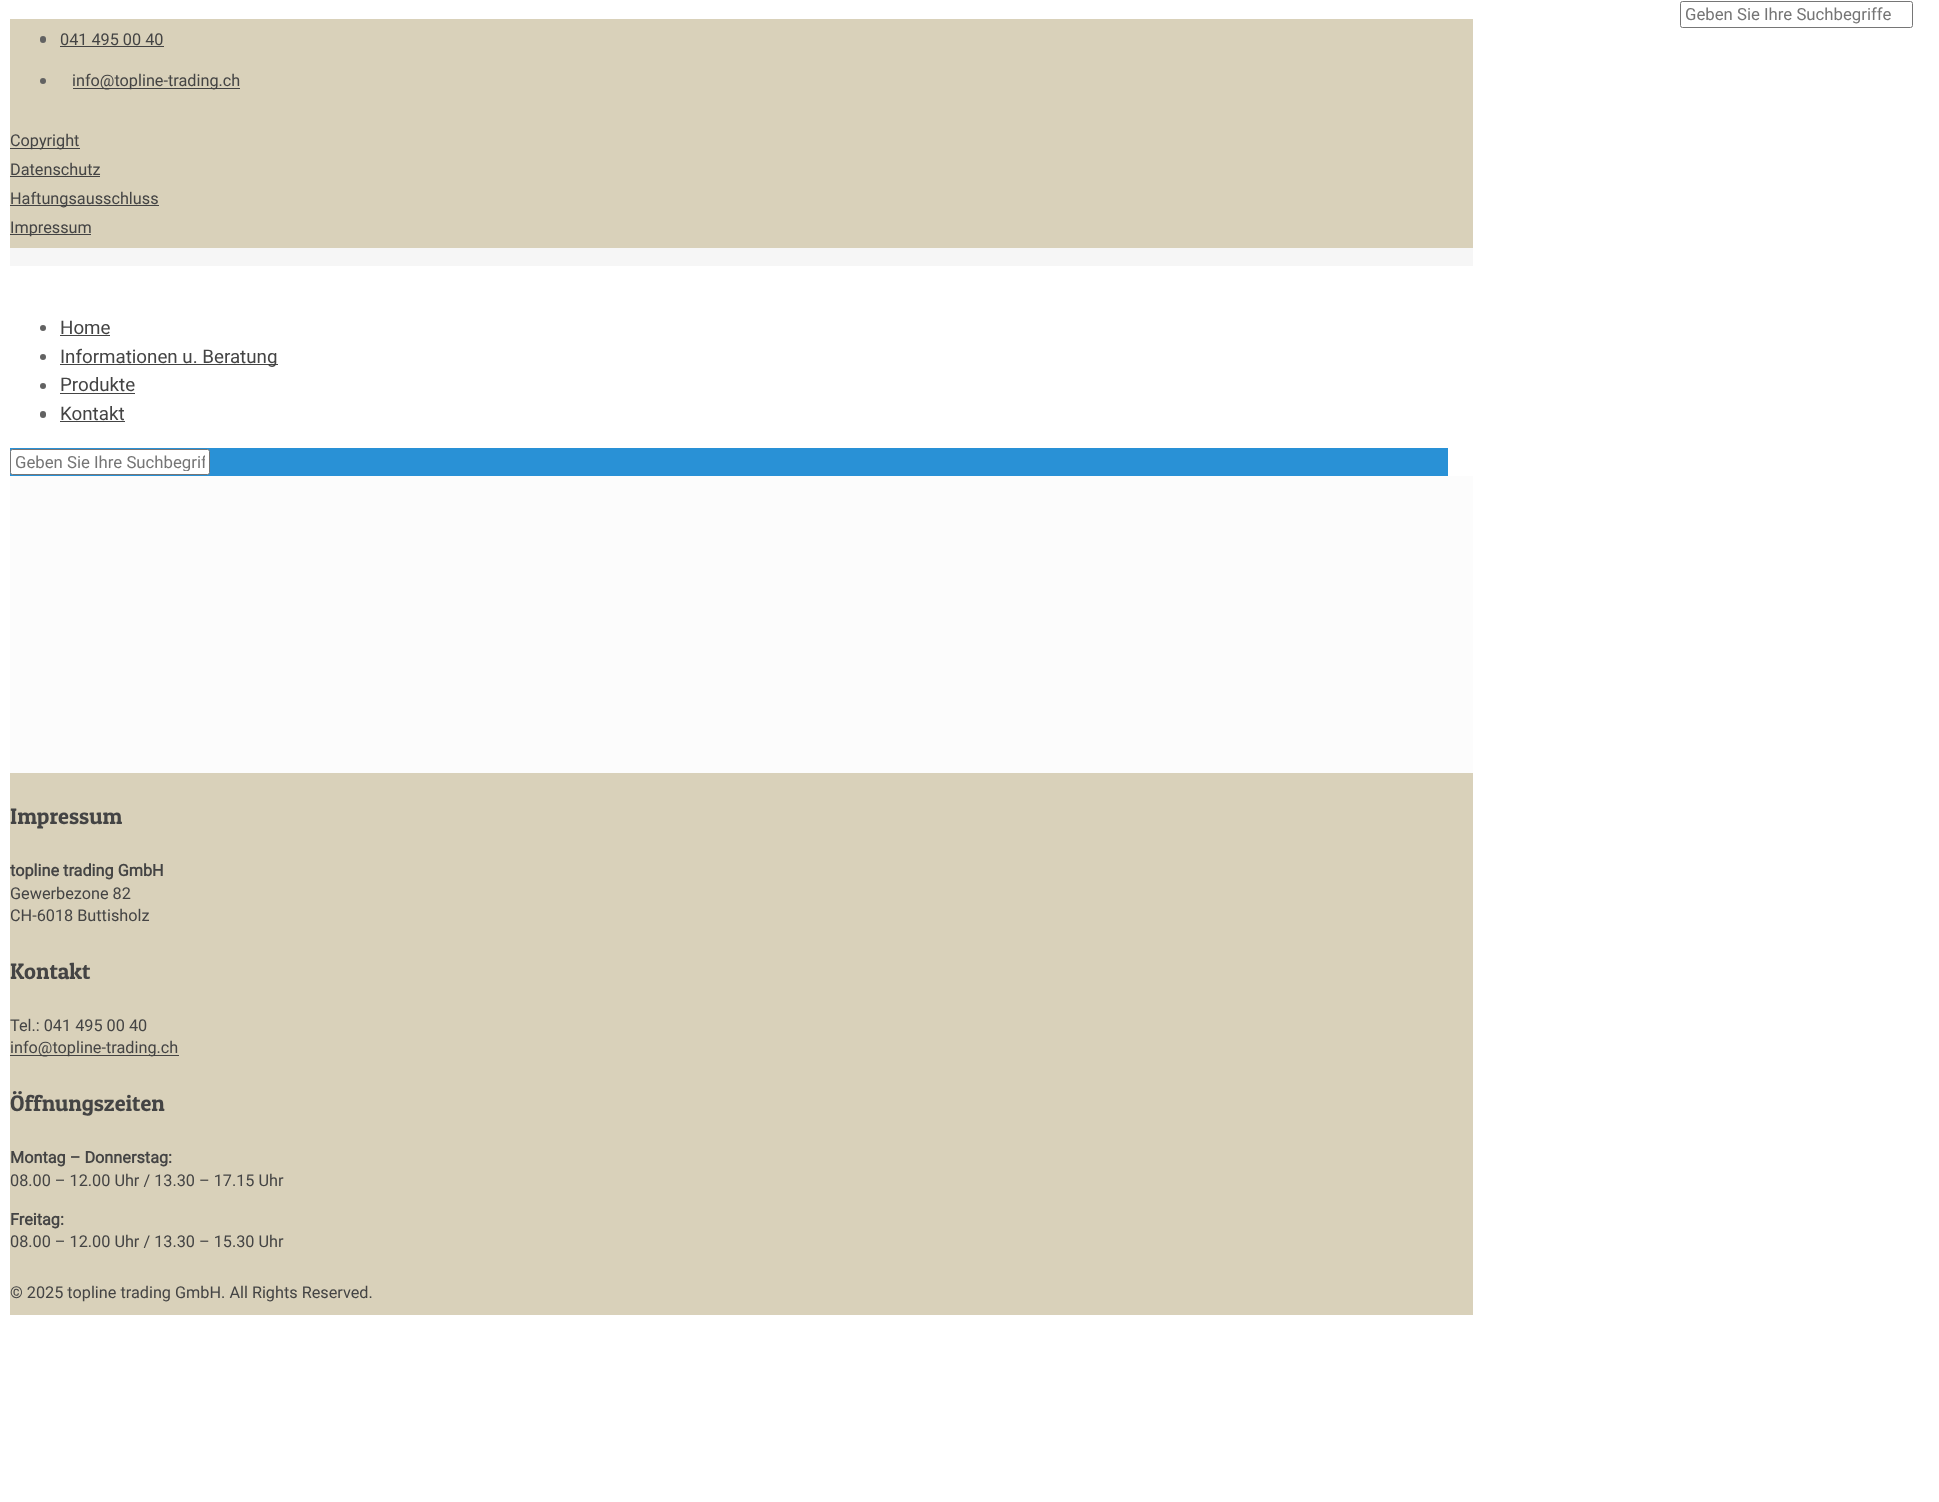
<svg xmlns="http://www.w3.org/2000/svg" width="1939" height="1502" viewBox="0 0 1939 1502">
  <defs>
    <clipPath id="clip1"><rect x="15" y="453" width="190" height="18"/></clipPath>
  </defs>
  <rect width="100%" height="100%" fill="rgb(255,255,255)"/>
  <rect x="10" y="476" width="1463" height="297" fill="rgb(252,252,252)"/>
  <rect x="10" y="248" width="1463" height="18" fill="rgb(246,246,246)"/>
  <rect x="1680.5" y="1.5" width="232" height="26" rx="2" fill="none" stroke="rgb(118,118,118)"/>
  <text x="1685" y="20" font-family="Roboto" font-size="16.75" fill="rgb(117,117,117)">Geben Sie Ihre Suchbegriffe</text>
  <circle cx="43" cy="328" r="3" fill="rgb(98,98,98)"/>
  <text x="60" y="334" font-family="Roboto" font-size="18.75" fill="rgb(68,68,68)">Home</text>
  <rect x="60" y="335" width="50" height="1" fill="rgb(68,68,68)"/>
  <circle cx="43" cy="357" r="3" fill="rgb(98,98,98)"/>
  <rect x="60" y="364" width="218" height="1" fill="rgb(68,68,68)"/>
  <text x="60" y="363" font-family="Roboto" font-size="18.75" fill="rgb(68,68,68)">Informationen u. Beratung</text>
  <circle cx="43" cy="386" r="3" fill="rgb(98,98,98)"/>
  <text x="60" y="391" font-family="Roboto" font-size="18.75" fill="rgb(68,68,68)">Produkte</text>
  <rect x="60" y="393" width="75" height="1" fill="rgb(68,68,68)"/>
  <rect x="40" y="411" width="6" height="7" rx="3" fill="rgb(98,98,98)"/>
  <text x="60" y="420" font-family="Roboto" font-size="18.75" fill="rgb(68,68,68)">Kontakt</text>
  <rect x="60" y="421" width="65" height="1" fill="rgb(68,68,68)"/>
  <rect x="10" y="448" width="1438" height="28" fill="rgb(41,145,214)"/>
  <rect x="10.5" y="449.5" width="199" height="25" rx="2" fill="rgb(255,255,255)" stroke="rgb(118,118,118)"/>
  <g clip-path="url(#clip1)">
    <text x="15" y="468" font-family="Roboto" font-size="16.75" fill="rgb(117,117,117)">Geben Sie Ihre Suchbegrif</text>
  </g>
  <rect x="10" y="19" width="1463" height="229" fill="rgb(217,209,186)"/>
  <rect x="40" y="36" width="6" height="7" rx="3" fill="rgb(98,98,98)"/>
  <text x="60" y="45" font-family="Roboto" font-size="16.25" fill="rgb(68,68,68)">041 495 00 40</text>
  <rect x="60" y="46" width="104" height="1" fill="rgb(68,68,68)"/>
  <circle cx="43" cy="81" r="3" fill="rgb(98,98,98)"/>
  <rect x="73" y="88" width="167" height="1" fill="rgb(68,68,68)"/>
  <text x="72" y="86" font-family="Roboto" font-size="16.25" fill="rgb(68,68,68)">info@topline-trading.ch</text>
  <rect x="10" y="148" width="70" height="1" fill="rgb(68,68,68)"/>
  <g font-family="Roboto" font-size="16.25" fill="rgb(68,68,68)">
    <text>
      <tspan x="10" y="146">Copyright</tspan>
      <tspan x="10" y="175">Datenschutz</tspan>
    </text>
  </g>
  <rect x="10" y="176" width="90" height="1" fill="rgb(68,68,68)"/>
  <rect x="10" y="205" width="149" height="1" fill="rgb(68,68,68)"/>
  <text x="10" y="204" font-family="Roboto" font-size="16.25" fill="rgb(68,68,68)">Haftungsausschluss</text>
  <rect x="10" y="234" width="81" height="1" fill="rgb(68,68,68)"/>
  <text x="10" y="233" font-family="Roboto" font-size="16.25" fill="rgb(68,68,68)">Impressum</text>
  <rect x="10" y="773" width="1463" height="542" fill="rgb(217,209,186)"/>
  <text x="10" y="824" font-family="Patua One" font-size="22.5" fill="rgb(68,68,68)">Impressum</text>
  <text x="10" y="876" font-family="Roboto" font-size="16.25" font-weight="bold" fill="rgb(68,68,68)">topline trading GmbH</text>
  <g font-family="Roboto" font-size="16.25" fill="rgb(68,68,68)">
    <text>
      <tspan x="10" y="899">Gewerbezone 82</tspan>
      <tspan x="10" y="921">CH-6018 Buttisholz</tspan>
    </text>
  </g>
  <text x="10" y="979" font-family="Patua One" font-size="22.5" fill="rgb(68,68,68)">Kontakt</text>
  <text x="10" y="1031" font-family="Roboto" font-size="16.25" fill="rgb(68,68,68)">Tel.: 041 495 00 40</text>
  <rect x="10" y="1055" width="169" height="1" fill="rgb(68,68,68)"/>
  <text x="10" y="1053" font-family="Roboto" font-size="16.25" fill="rgb(68,68,68)">info@topline-trading.ch</text>
  <text x="10" y="1111" font-family="Patua One" font-size="22.5" fill="rgb(68,68,68)">Öffnungszeiten</text>
  <text x="10" y="1163" font-family="Roboto" font-size="16.25" font-weight="bold" fill="rgb(68,68,68)">Montag – Donnerstag:</text>
  <text x="10" y="1186" font-family="Roboto" font-size="16.25" fill="rgb(68,68,68)">08.00 – 12.00 Uhr / 13.30 – 17.15 Uhr</text>
  <text x="10" y="1225" font-family="Roboto" font-size="16.25" font-weight="bold" fill="rgb(68,68,68)">Freitag:</text>
  <g font-family="Roboto" font-size="16.25" fill="rgb(68,68,68)">
    <text x="10" y="1247">08.00 – 12.00 Uhr / 13.30 – 15.30 Uhr</text>
    <text x="10" y="1298">© 2025 topline trading GmbH. All Rights Reserved.</text>
  </g>
</svg>
